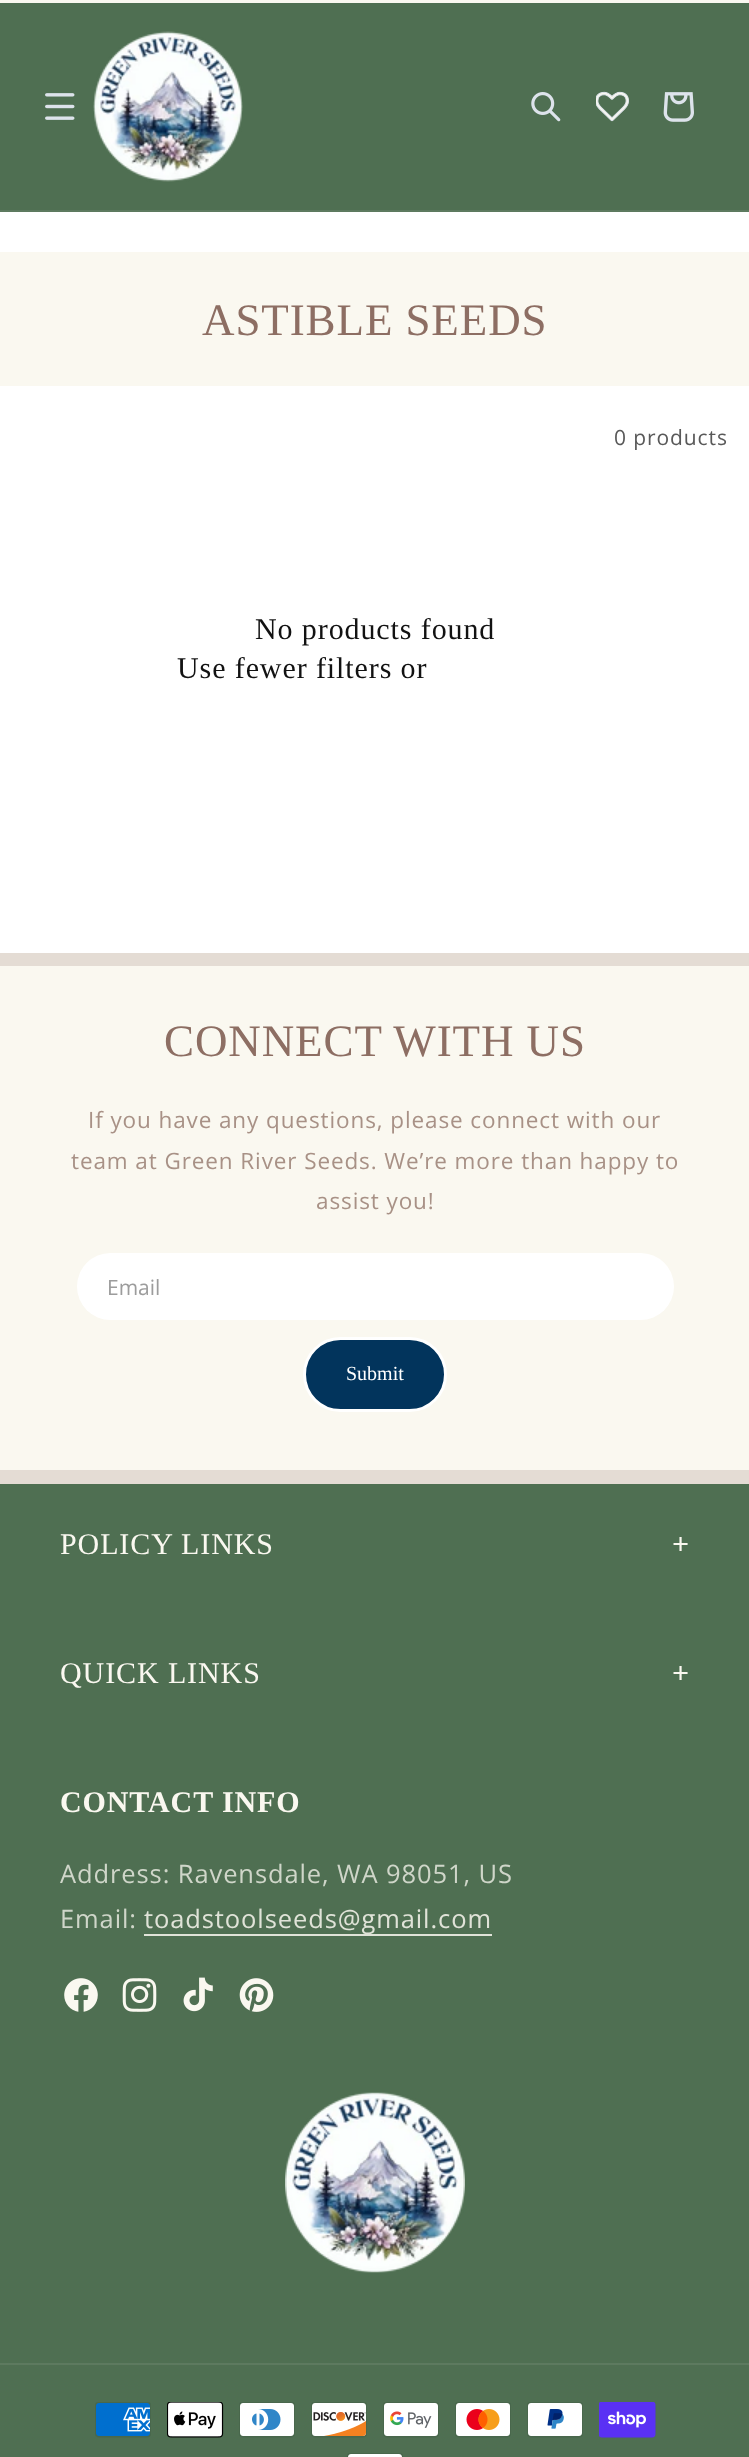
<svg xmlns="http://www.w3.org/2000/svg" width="749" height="2457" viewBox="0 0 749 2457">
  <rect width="100%" height="100%" fill="rgb(255,255,255)"/>
  <rect x="0" y="0" width="749" height="3" fill="rgb(250,248,240)"/>
  <rect x="0" y="3" width="749" height="207" fill="rgb(79,111,82)"/>
  <rect x="0" y="210" width="749" height="2" fill="rgb(93,122,95)"/>
  <image x="45" y="93" width="30" height="27" href="pic1.png"/>
  <image x="93" y="31" width="150" height="151" href="pic2.png"/>
  <image x="531" y="92" width="30" height="30" href="pic3.png"/>
  <image x="596" y="91" width="33" height="31" href="pic4.png"/>
  <image x="663" y="92" width="31" height="30" href="pic5.png"/>
  <rect x="0" y="252" width="749" height="134" fill="rgb(250,248,240)"/>
  <text x="202" y="335" font-family="Liberation Serif" font-size="45" letter-spacing="0.9" fill="rgb(141,110,99)">ASTIBLE SEEDS</text>
  <text x="614" y="445" font-family="Open Sans" font-size="21" letter-spacing="0.9" fill="rgb(89,89,89)">0 products</text>
  <g font-family="Liberation Serif" font-size="30" letter-spacing="0.9" fill="rgb(18,18,18)">
    <text x="255" y="639">No products found</text>
    <text x="177" y="678">Use fewer filters or</text>
  </g>
  <rect x="0" y="966" width="749" height="504" fill="rgb(250,248,240)"/>
  <rect x="0" y="953" width="749" height="13" fill="rgb(228,220,212)"/>
  <rect x="0" y="1470" width="749" height="14" fill="rgb(228,220,212)"/>
  <text x="164" y="1056" font-family="Liberation Serif" font-size="45" letter-spacing="0.9" fill="rgb(141,110,99)">CONNECT WITH US</text>
  <g font-family="Open Sans" font-size="22.5" letter-spacing="0.9" fill="rgb(168,145,134)">
    <text x="88" y="1128">If you have any questions, please connect with our</text>
    <text x="71" y="1169">team at Green River Seeds. We’re more than happy to</text>
    <text x="316" y="1209">assist you!</text>
  </g>
  <rect x="77" y="1253" width="597" height="67" rx="33.5" fill="rgb(255,255,255)"/>
  <text x="107" y="1295" font-family="Open Sans" font-size="21" fill="rgb(156,156,156)">Email</text>
  <rect x="304.5" y="1338.5" width="141" height="72" rx="36" fill="rgb(2,52,92)" stroke="rgb(255,255,255)" stroke-width="3"/>
  <text x="346" y="1380" font-family="Liberation Serif" font-size="20" fill="rgb(255,255,255)">Submit</text>
  <rect x="0" y="1484" width="749" height="973" fill="rgb(79,111,82)"/>
  <text x="60" y="1554" font-family="Liberation Serif" font-size="30" letter-spacing="0.9" fill="rgb(250,248,240)">POLICY LINKS</text>
  <text x="672" y="1554" font-family="Liberation Serif" font-size="30" font-weight="bold" letter-spacing="0.9" fill="rgb(250,248,240)">+</text>
  <text x="60" y="1683" font-family="Liberation Serif" font-size="30" letter-spacing="0.9" fill="rgb(250,248,240)">QUICK LINKS</text>
  <g font-family="Liberation Serif" font-size="30" font-weight="bold" letter-spacing="0.9" fill="rgb(250,248,240)">
    <text x="672" y="1683">+</text>
    <text x="60" y="1812">CONTACT INFO</text>
  </g>
  <g font-family="Open Sans" font-size="25.5" letter-spacing="0.9" fill="rgb(207,214,201)">
    <text>
      <tspan x="60" y="1883">Address: Ravensdale, WA 98051, US</tspan>
      <tspan x="60" y="1928">Email:</tspan>
    </text>
  </g>
  <rect x="144" y="1934" width="348" height="2" fill="rgb(224,227,216)"/>
  <text x="144" y="1928" font-family="Open Sans" font-size="25.5" letter-spacing="0.9" fill="rgb(224,227,216)">toadstoolseeds@gmail.com</text>
  <image x="64" y="1978" width="34" height="34" href="pic6.png"/>
  <image x="122" y="1978" width="35" height="34" href="pic7.png"/>
  <image x="183" y="1977" width="30" height="35" href="pic8.png"/>
  <image x="239" y="1978" width="35" height="34" href="pic9.png"/>
  <image x="285" y="2092" width="180" height="181" href="pic10.png"/>
  <rect x="0" y="2363" width="749" height="2" fill="rgb(93,122,95)"/>
  <image x="95" y="2402" width="56" height="36" href="pic11.png"/>
  <image x="167" y="2402" width="57" height="36" href="pic12.png"/>
  <image x="239" y="2402" width="56" height="36" href="pic13.png"/>
  <image x="311" y="2402" width="56" height="36" href="pic14.png"/>
  <image x="383" y="2402" width="56" height="36" href="pic15.png"/>
  <image x="455" y="2402" width="56" height="36" href="pic16.png"/>
  <image x="527" y="2402" width="56" height="36" href="pic17.png"/>
  <image x="599" y="2402" width="57" height="36" href="pic18.png"/>
  <image x="347" y="2453" width="56" height="4" href="pic19.png"/>
</svg>
